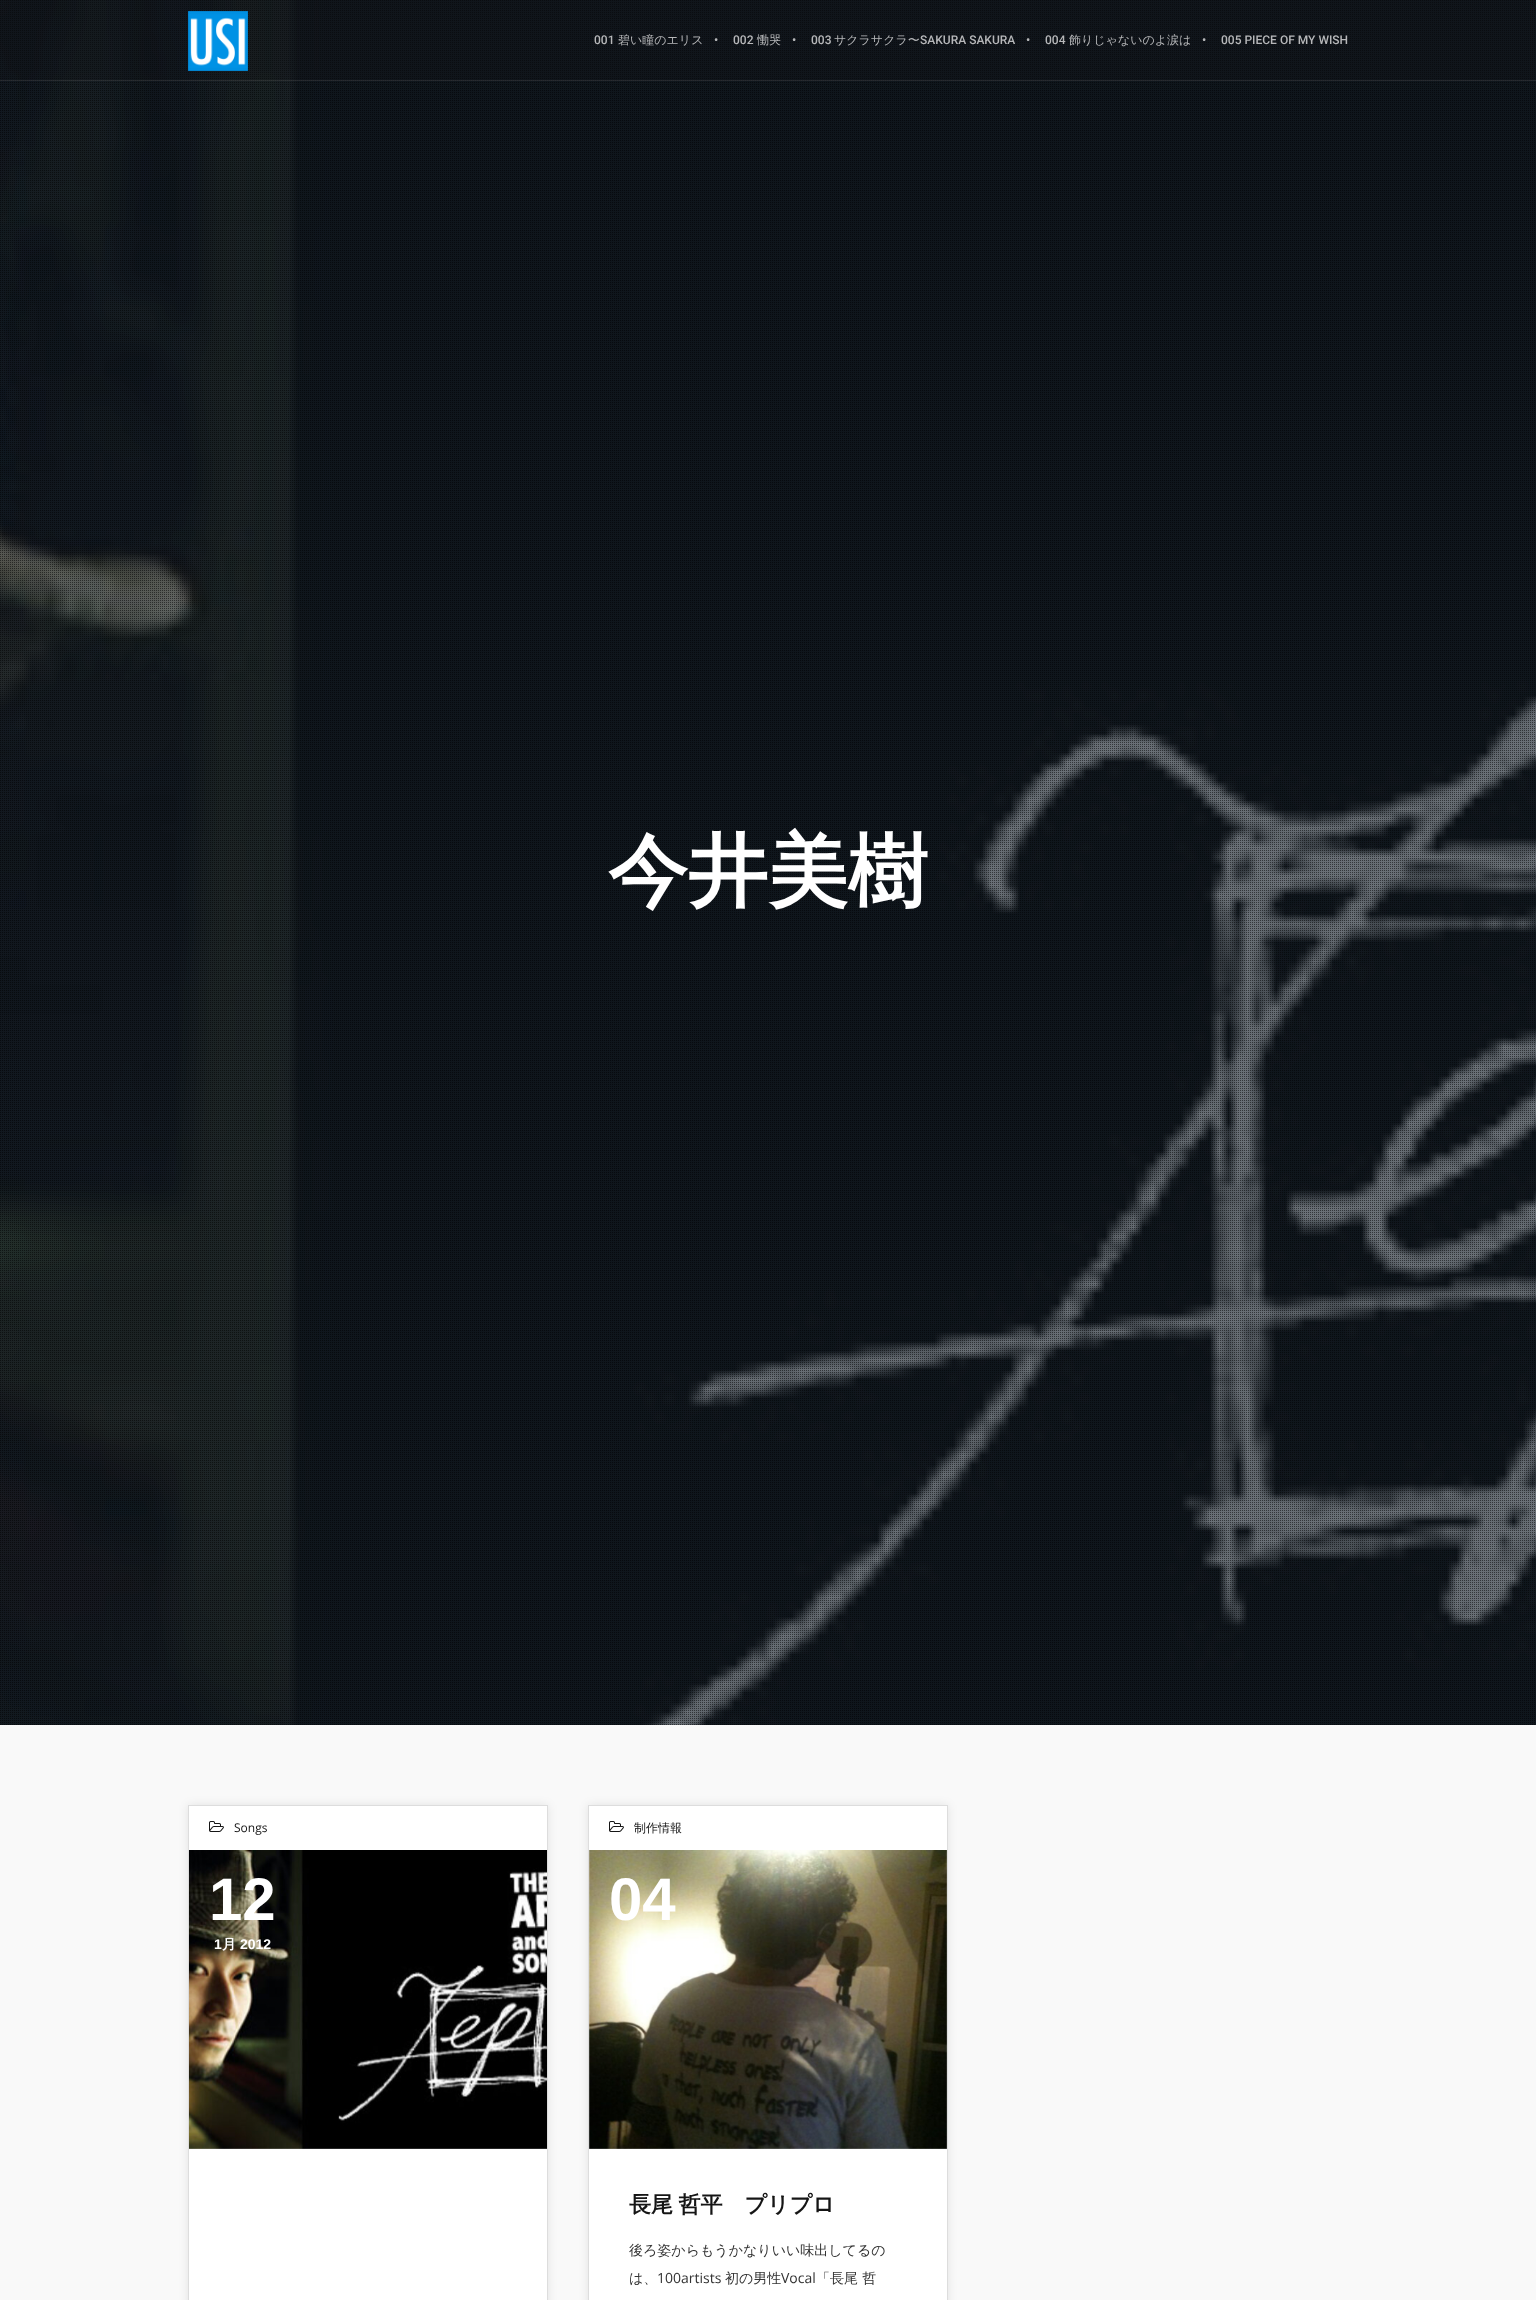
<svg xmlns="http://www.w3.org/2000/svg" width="1536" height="2300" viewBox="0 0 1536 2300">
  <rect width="100%" height="100%" fill="rgb(255,255,255)"/>
  <image x="0" y="0" width="1536" height="1725" href="pic2.png"/>
  <image x="0" y="0" width="1536" height="1725" href="pic3.png"/>
  <rect x="0" y="0" width="1535" height="81" fill="rgba(19,20,22,0.25)"/>
  <rect x="0" y="80" width="1536" height="1" fill="rgba(255,255,255,0.1)"/>
  <image x="188" y="11" width="60" height="60" href="pic1.png"/>
  <text x="594" y="44" font-family="Roboto" font-size="12" font-weight="500" fill="rgb(183,184,186)">001</text>
  <text x="618" y="44" font-family="WenQuanYi Zen Hei" font-size="12" font-weight="500" fill="rgb(183,184,186)">碧い瞳のエリス</text>
  <g font-family="Roboto" font-size="12" font-weight="500" fill="rgb(183,184,186)">
    <text x="714" y="44">•</text>
    <text x="733" y="44">002</text>
  </g>
  <text x="757" y="44" font-family="WenQuanYi Zen Hei" font-size="12" font-weight="500" fill="rgb(183,184,186)">慟哭</text>
  <g font-family="Roboto" font-size="12" font-weight="500" fill="rgb(183,184,186)">
    <text x="792" y="44">•</text>
    <text x="811" y="44">003</text>
  </g>
  <text x="834" y="44" font-family="WenQuanYi Zen Hei" font-size="12" font-weight="500" fill="rgb(183,184,186)">サクラサクラ〜</text>
  <g font-family="Roboto" font-size="12" font-weight="500" fill="rgb(183,184,186)">
    <text x="920" y="44">SAKURA SAKURA</text>
    <text x="1026" y="44">•</text>
    <text x="1045" y="44">004</text>
  </g>
  <text x="1069" y="44" font-family="WenQuanYi Zen Hei" font-size="12" font-weight="500" fill="rgb(183,184,186)">飾りじゃないのよ涙は</text>
  <g font-family="Roboto" font-size="12" font-weight="500" fill="rgb(183,184,186)">
    <text x="1202" y="44">•</text>
    <text x="1221" y="44">005 PIECE OF MY WISH</text>
  </g>
  <text x="608" y="899" font-family="WenQuanYi Zen Hei" font-size="80" font-weight="bold" fill="rgb(255,255,255)">今井美樹</text>
  <rect x="0" y="1725" width="1536" height="575" fill="rgb(249,249,249)"/>
  <rect x="188" y="1805" width="360" height="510" fill="rgba(0,0,0,0.09)" filter="blur(5px)"/>
  <rect x="188.5" y="1805.5" width="359" height="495" fill="rgb(255,255,255)" stroke="rgb(221,221,221)"/>
  <image x="209" y="1821" width="15" height="11" href="pic4.png"/>
  <text x="234" y="1832" font-family="Open Sans" font-size="12" fill="rgb(21,21,21)">Songs</text>
  <image x="189" y="1850" width="358" height="299" href="pic5.png"/>
  <text x="209" y="1920" font-family="Liberation Sans" font-size="60" font-weight="bold" fill="rgb(255,255,255)">12</text>
  <text x="214" y="1949" font-family="Liberation Sans" font-size="14" font-weight="bold" fill="rgb(255,255,255)">1</text>
  <text x="222" y="1949" font-family="WenQuanYi Zen Hei" font-size="14" font-weight="bold" fill="rgb(255,255,255)">月</text>
  <text x="240" y="1949" font-family="Liberation Sans" font-size="14" font-weight="bold" fill="rgb(255,255,255)">2012</text>
  <rect x="588" y="1805" width="360" height="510" fill="rgba(0,0,0,0.09)" filter="blur(5px)"/>
  <rect x="588.5" y="1805.5" width="359" height="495" fill="rgb(255,255,255)" stroke="rgb(221,221,221)"/>
  <image x="609" y="1821" width="15" height="11" href="pic4.png"/>
  <text x="634" y="1832" font-family="WenQuanYi Zen Hei" font-size="12" font-weight="500" fill="rgb(21,21,21)">制作情報</text>
  <image x="589" y="1850" width="358" height="299" href="pic6.png"/>
  <text x="609" y="1920" font-family="Liberation Sans" font-size="60" font-weight="bold" fill="rgb(255,255,255)">04</text>
  <text x="629" y="2212" word-spacing="-1" font-family="WenQuanYi Zen Hei" font-size="22" font-weight="bold" fill="rgb(21,21,21)">長尾 哲平　プリプロ</text>
  <g font-family="WenQuanYi Zen Hei" font-size="14" font-weight="500" fill="rgb(51,51,51)">
    <text x="629" y="2255">後ろ姿からもうかなりいい味出してるの</text>
    <text x="629" y="2283">は、</text>
  </g>
  <text x="657" y="2283" font-family="Open Sans" font-size="14" fill="rgb(51,51,51)">100artists</text>
  <text x="725" y="2283" font-family="WenQuanYi Zen Hei" font-size="14" font-weight="500" fill="rgb(51,51,51)">初の男性</text>
  <text x="781" y="2283" font-family="Open Sans" font-size="14" fill="rgb(51,51,51)">Vocal</text>
  <text x="816" y="2283" font-family="WenQuanYi Zen Hei" font-size="14" font-weight="500" fill="rgb(51,51,51)">「長尾 哲</text>
</svg>
